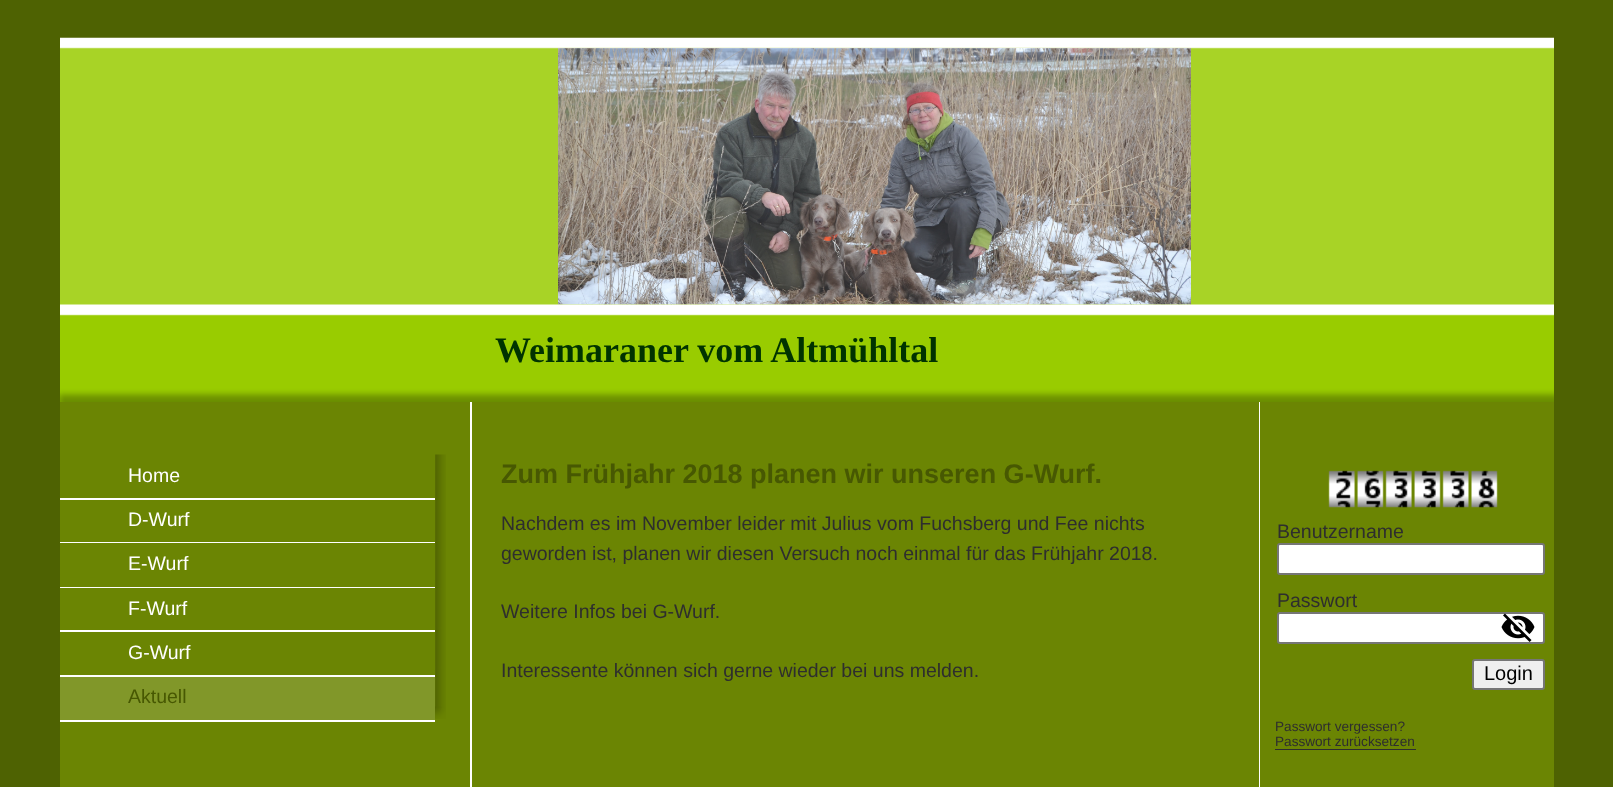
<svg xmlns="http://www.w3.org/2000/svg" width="1613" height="787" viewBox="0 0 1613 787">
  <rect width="100%" height="100%" fill="rgb(78,98,2)"/>
  <rect x="60" y="47" width="1494" height="355" fill="rgb(153,204,0)"/>
  <image x="558" y="48" width="633" height="257" href="pic2.png"/>
  <image x="60" y="37" width="1494" height="365" href="pic1.png"/>
  <text x="495" y="362" font-family="Liberation Serif" font-size="36" font-weight="bold" fill="rgb(0,51,0)">Weimaraner vom Altmühltal</text>
  <rect x="60" y="402" width="410" height="385" fill="rgb(107,133,3)"/>
  <image x="435" y="454" width="11" height="265" href="pic3.png"/>
  <rect x="60" y="498" width="375" height="2" fill="rgb(255,255,255)"/>
  <text x="128" y="482" font-family="Liberation Sans" font-size="19.5" fill="rgb(255,255,255)">Home</text>
  <rect x="60" y="542" width="375" height="1" fill="rgb(255,255,255)"/>
  <text x="128" y="526" font-family="Liberation Sans" font-size="19.5" fill="rgb(255,255,255)">D-Wurf</text>
  <rect x="60" y="587" width="375" height="1" fill="rgb(255,255,255)"/>
  <text x="128" y="570" font-family="Liberation Sans" font-size="19.5" fill="rgb(255,255,255)">E-Wurf</text>
  <rect x="60" y="630" width="375" height="2" fill="rgb(255,255,255)"/>
  <text x="128" y="615" font-family="Liberation Sans" font-size="19.5" fill="rgb(255,255,255)">F-Wurf</text>
  <rect x="60" y="675" width="375" height="2" fill="rgb(255,255,255)"/>
  <text x="128" y="659" font-family="Liberation Sans" font-size="19.5" fill="rgb(255,255,255)">G-Wurf</text>
  <rect x="60" y="677" width="375" height="43" fill="rgb(129,151,41)"/>
  <rect x="60" y="720" width="375" height="2" fill="rgb(255,255,255)"/>
  <text x="128" y="703" font-family="Liberation Sans" font-size="19.5" fill="rgb(71,88,2)">Aktuell</text>
  <rect x="472" y="402" width="787" height="385" fill="rgb(107,133,3)"/>
  <rect x="1259" y="402" width="1" height="385" fill="rgb(255,255,255)"/>
  <rect x="470" y="402" width="2" height="385" fill="rgb(255,255,255)"/>
  <text x="501" y="483" font-family="Liberation Sans" font-size="27" font-weight="bold" fill="rgb(71,88,2)">Zum Frühjahr 2018 planen wir unseren G-Wurf.</text>
  <g font-family="Liberation Sans" font-size="19.5" fill="rgb(46,46,46)">
    <text>
      <tspan x="501" y="530">Nachdem es im November leider mit Julius vom Fuchsberg und Fee nichts</tspan>
      <tspan x="501" y="560">geworden ist, planen wir diesen Versuch noch einmal für das Frühjahr 2018.</tspan>
    </text>
    <text x="501" y="618">Weitere Infos bei G-Wurf.</text>
    <text x="501" y="677">Interessente können sich gerne wieder bei uns melden.</text>
  </g>
  <rect x="1260" y="402" width="294" height="385" fill="rgb(107,133,3)"/>
  <image x="1328" y="470" width="170" height="38" href="pic4.png"/>
  <text x="1277" y="538" font-family="Liberation Sans" font-size="19.5" fill="rgb(46,46,46)">Benutzername</text>
  <rect x="1278" y="544" width="266" height="30" rx="2" fill="rgb(255,255,255)" stroke="rgb(118,118,118)" stroke-width="2"/>
  <text x="1277" y="607" font-family="Liberation Sans" font-size="19.5" fill="rgb(46,46,46)">Passwort</text>
  <rect x="1278" y="613" width="266" height="30" rx="2" fill="rgb(255,255,255)" stroke="rgb(118,118,118)" stroke-width="2"/>
  <image x="1501" y="613" width="34" height="29" href="pic5.png"/>
  <rect x="1473" y="660" width="71" height="29" rx="2" fill="rgb(239,239,239)" stroke="rgb(118,118,118)" stroke-width="2"/>
  <text x="1484" y="680" font-family="Liberation Sans" font-size="20" fill="rgb(0,0,0)">Login</text>
  <g font-family="Liberation Sans" font-size="13.6" fill="rgb(46,46,46)">
    <text>
      <tspan x="1275" y="731">Passwort vergessen?</tspan>
      <tspan x="1275" y="746">Passwort zurücksetzen</tspan>
    </text>
  </g>
  <rect x="1275" y="749" width="141" height="1" fill="rgb(46,46,46)"/>
</svg>
